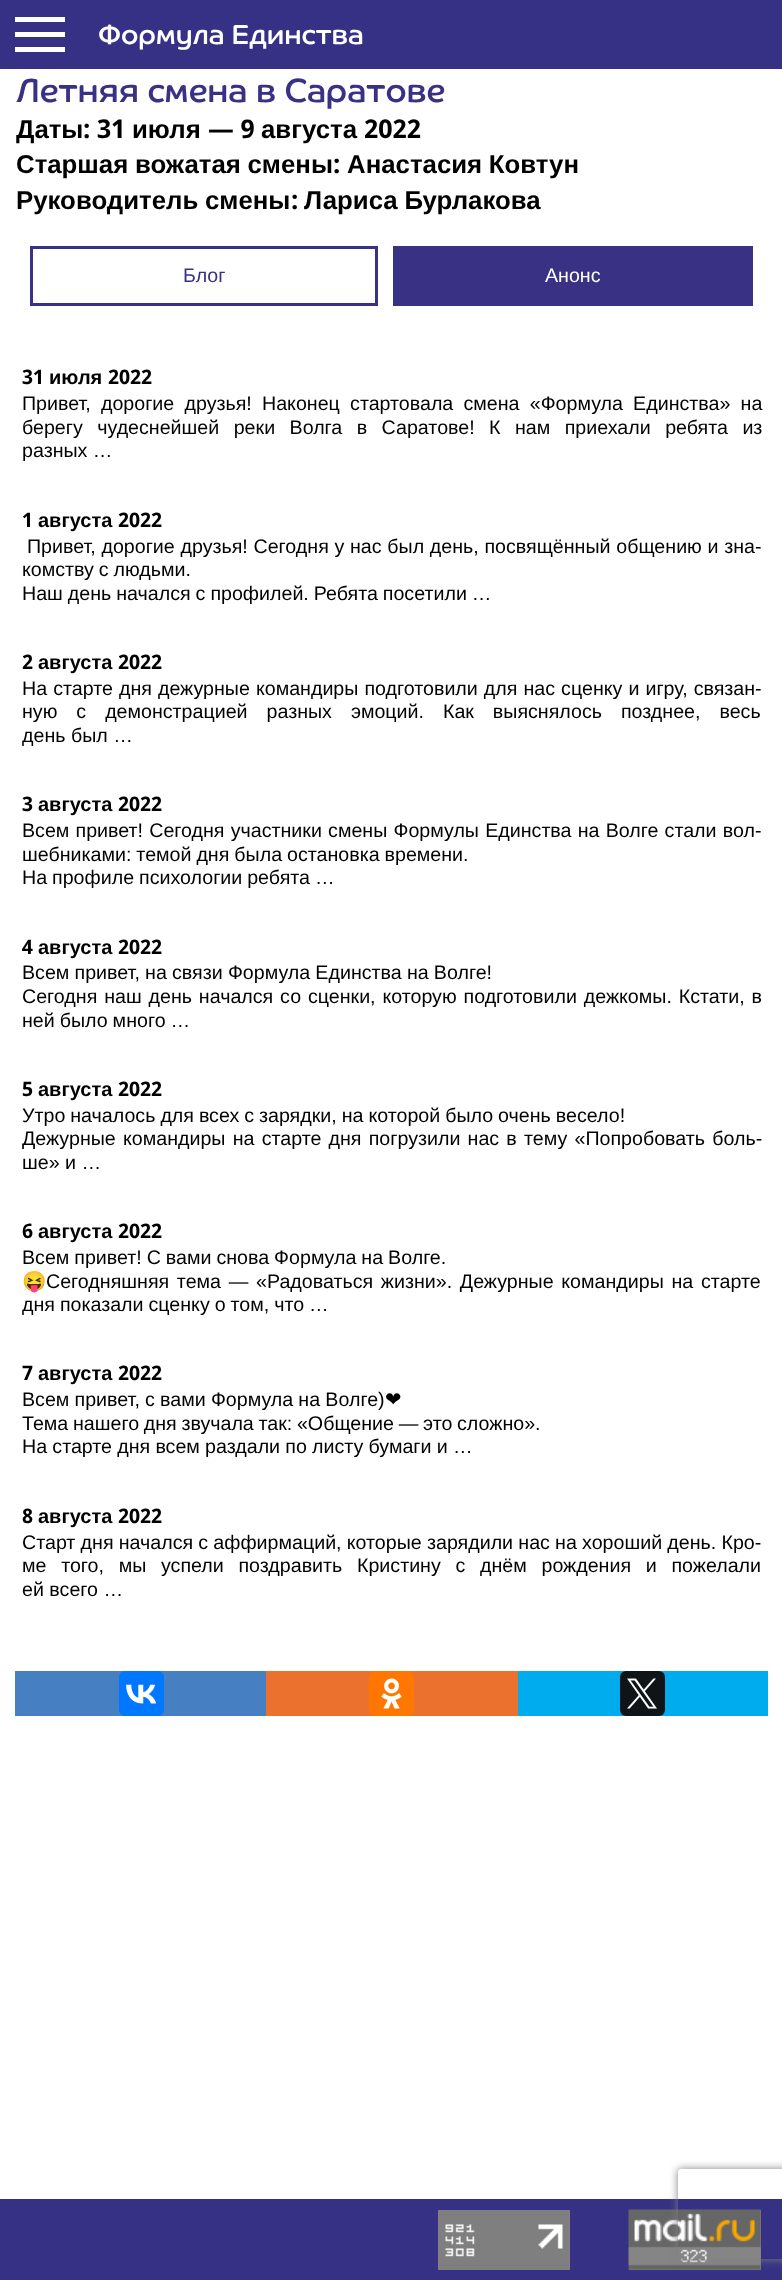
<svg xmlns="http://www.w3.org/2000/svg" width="782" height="2280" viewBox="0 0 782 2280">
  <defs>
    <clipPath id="clip1"><path d="M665 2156H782V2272H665ZM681 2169H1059C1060.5 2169 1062 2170.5 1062 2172V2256C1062 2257.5 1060.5 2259 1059 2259H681C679.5 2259 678 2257.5 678 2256V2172C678 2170.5 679.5 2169 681 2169Z" clip-rule="evenodd"/></clipPath>
  </defs>
  <rect width="100%" height="100%" fill="rgb(255,255,255)"/>
  <rect x="0" y="0" width="782" height="69" fill="rgb(55,49,133)"/>
  <rect x="15" y="32" width="50" height="5" fill="rgb(255,255,255)"/>
  <rect x="15" y="17" width="50" height="5" fill="rgb(255,255,255)"/>
  <rect x="15" y="47" width="50" height="5" fill="rgb(255,255,255)"/>
  <text x="98" y="44" font-family="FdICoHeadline" font-size="27.75" fill="rgb(255,255,255)">Формула Единства</text>
  <text x="16" y="102" font-family="FdICoHeadline" font-size="33.7" fill="rgb(56,49,132)">Летняя смена в Саратове</text>
  <text x="16" y="138" font-family="Liberation Sans" font-size="25.8" font-weight="bold" fill="rgb(0,0,0)">Даты</text>
  <text x="83" y="138" font-family="Droid Sans" font-size="25.8" font-weight="bold" fill="rgb(0,0,0)">: 31</text>
  <text x="132" y="138" font-family="Liberation Sans" font-size="25.8" font-weight="bold" fill="rgb(0,0,0)">июля</text>
  <text x="208" y="138" font-family="Droid Sans" font-size="25.8" font-weight="bold" fill="rgb(0,0,0)">— 9</text>
  <text x="261" y="138" font-family="Liberation Sans" font-size="25.8" font-weight="bold" fill="rgb(0,0,0)">августа</text>
  <text x="364" y="138" font-family="Droid Sans" font-size="25.8" font-weight="bold" fill="rgb(0,0,0)">2022</text>
  <text x="16" y="173" word-spacing="-0.5" font-family="Liberation Sans" font-size="25.8" font-weight="bold" fill="rgb(0,0,0)">Старшая вожатая смены</text>
  <text x="333" y="173" font-family="Droid Sans" font-size="25.8" font-weight="bold" fill="rgb(0,0,0)">:</text>
  <g font-family="Liberation Sans" font-size="25.8" font-weight="bold" fill="rgb(0,0,0)">
    <text x="347" y="173" word-spacing="-0.5">Анастасия Ковтун</text>
    <text x="16" y="209" word-spacing="-0.5">Руководитель смены</text>
  </g>
  <text x="291" y="209" font-family="Droid Sans" font-size="25.8" font-weight="bold" fill="rgb(0,0,0)">:</text>
  <text x="304" y="209" word-spacing="-0.5" font-family="Liberation Sans" font-size="25.8" font-weight="bold" fill="rgb(0,0,0)">Лариса Бурлакова</text>
  <rect x="31.5" y="247.5" width="345" height="57" fill="none" stroke="rgb(56,49,132)" stroke-width="3"/>
  <text x="183" y="282" font-family="Liberation Sans" font-size="19.65" fill="rgb(56,49,132)">Блог</text>
  <rect x="393" y="246" width="360" height="60" fill="rgb(56,49,132)"/>
  <text x="545" y="282" font-family="Liberation Sans" font-size="19.65" fill="rgb(255,255,255)">Анонс</text>
  <text x="22" y="384" font-family="Droid Sans" font-size="20" font-weight="bold" fill="rgb(0,0,0)">31</text>
  <text x="49" y="384" font-family="Liberation Sans" font-size="20" font-weight="bold" fill="rgb(0,0,0)">июля</text>
  <text x="108" y="384" font-family="Droid Sans" font-size="20" font-weight="bold" fill="rgb(0,0,0)">2022</text>
  <g font-family="Liberation Sans" font-size="19.65" fill="rgb(0,0,0)">
    <text>
      <tspan x="22" y="410" word-spacing="4.75">Привет, дорогие друзья! Наконец стартовала смена «Формула Единства» на</tspan>
      <tspan x="22" y="434" word-spacing="9">берегу чудеснейшей реки Волга в Саратове! К нам приехали ребята из</tspan>
      <tspan x="22" y="457">разных …</tspan>
    </text>
  </g>
  <text x="22" y="527" font-family="Droid Sans" font-size="20" font-weight="bold" fill="rgb(0,0,0)">1</text>
  <text x="38" y="527" font-family="Liberation Sans" font-size="20" font-weight="bold" fill="rgb(0,0,0)">августа</text>
  <text x="118" y="527" font-family="Droid Sans" font-size="20" font-weight="bold" fill="rgb(0,0,0)">2022</text>
  <g font-family="Liberation Sans" font-size="19.65" fill="rgb(0,0,0)">
    <text x="27" y="553" word-spacing="0.25">Привет, дорогие друзья! Сегодня у нас был день, посвящённый общению и зна-</text>
    <text>
      <tspan x="22" y="576" word-spacing="-0.5">комству с людьми.</tspan>
      <tspan x="22" y="600" word-spacing="-0.5">Наш день начался с профилей. Ребята посетили …</tspan>
    </text>
  </g>
  <text x="22" y="669" font-family="Droid Sans" font-size="20" font-weight="bold" fill="rgb(0,0,0)">2</text>
  <text x="38" y="669" font-family="Liberation Sans" font-size="20" font-weight="bold" fill="rgb(0,0,0)">августа</text>
  <text x="118" y="669" font-family="Droid Sans" font-size="20" font-weight="bold" fill="rgb(0,0,0)">2022</text>
  <g font-family="Liberation Sans" font-size="19.65" fill="rgb(0,0,0)">
    <text>
      <tspan x="22" y="695" word-spacing="0.6">На старте дня дежурные командиры подготовили для нас сценку и игру, связан-</tspan>
      <tspan x="22" y="718" word-spacing="13.5">ную с демонстрацией разных эмоций. Как выяснялось позднее, весь</tspan>
      <tspan x="22" y="742">день был …</tspan>
    </text>
  </g>
  <text x="22" y="811" font-family="Droid Sans" font-size="20" font-weight="bold" fill="rgb(0,0,0)">3</text>
  <text x="38" y="811" font-family="Liberation Sans" font-size="20" font-weight="bold" fill="rgb(0,0,0)">августа</text>
  <text x="118" y="811" font-family="Droid Sans" font-size="20" font-weight="bold" fill="rgb(0,0,0)">2022</text>
  <g font-family="Liberation Sans" font-size="19.65" fill="rgb(0,0,0)">
    <text>
      <tspan x="22" y="837" word-spacing="0.75">Всем привет! Сегодня участники смены Формулы Единства на Волге стали вол-</tspan>
      <tspan x="22" y="861" word-spacing="-0.5">шебниками: темой дня была остановка времени.</tspan>
      <tspan x="22" y="884" word-spacing="-0.5">На профиле психологии ребята …</tspan>
    </text>
  </g>
  <text x="22" y="954" font-family="Droid Sans" font-size="20" font-weight="bold" fill="rgb(0,0,0)">4</text>
  <text x="38" y="954" font-family="Liberation Sans" font-size="20" font-weight="bold" fill="rgb(0,0,0)">августа</text>
  <text x="118" y="954" font-family="Droid Sans" font-size="20" font-weight="bold" fill="rgb(0,0,0)">2022</text>
  <g font-family="Liberation Sans" font-size="19.65" fill="rgb(0,0,0)">
    <text>
      <tspan x="22" y="979" word-spacing="-0.25">Всем привет, на связи Формула Единства на Волге!</tspan>
      <tspan x="22" y="1003" word-spacing="1.4">Сегодня наш день начался со сценки, которую подготовили дежкомы. Кстати, в</tspan>
      <tspan x="22" y="1027" word-spacing="-0.5">ней было много …</tspan>
    </text>
  </g>
  <text x="22" y="1096" font-family="Droid Sans" font-size="20" font-weight="bold" fill="rgb(0,0,0)">5</text>
  <text x="38" y="1096" font-family="Liberation Sans" font-size="20" font-weight="bold" fill="rgb(0,0,0)">августа</text>
  <text x="118" y="1096" font-family="Droid Sans" font-size="20" font-weight="bold" fill="rgb(0,0,0)">2022</text>
  <g font-family="Liberation Sans" font-size="19.65" fill="rgb(0,0,0)">
    <text>
      <tspan x="22" y="1122" word-spacing="-0.5">Утро началось для всех с зарядки, на которой было очень весело!</tspan>
      <tspan x="22" y="1145" word-spacing="1.75">Дежурные командиры на старте дня погрузили нас в тему «Попробовать боль-</tspan>
      <tspan x="22" y="1169">ше» и …</tspan>
    </text>
  </g>
  <text x="22" y="1238" font-family="Droid Sans" font-size="20" font-weight="bold" fill="rgb(0,0,0)">6</text>
  <text x="38" y="1238" font-family="Liberation Sans" font-size="20" font-weight="bold" fill="rgb(0,0,0)">августа</text>
  <text x="118" y="1238" font-family="Droid Sans" font-size="20" font-weight="bold" fill="rgb(0,0,0)">2022</text>
  <text x="22" y="1264" word-spacing="-0.5" font-family="Liberation Sans" font-size="19.65" fill="rgb(0,0,0)">Всем привет! С вами снова Формула на Волге.</text>
  <text x="22" y="1288" font-family="Noto Color Emoji" font-size="19.65" fill="rgb(0,0,0)">😝</text>
  <g font-family="Liberation Sans" font-size="19.65" fill="rgb(0,0,0)">
    <text x="46" y="1288" word-spacing="2.25">Сегодняшняя тема — «Радоваться жизни». Дежурные командиры на старте</text>
    <text x="22" y="1311" word-spacing="-0.5">дня показали сценку о том, что …</text>
  </g>
  <text x="22" y="1380" font-family="Droid Sans" font-size="20" font-weight="bold" fill="rgb(0,0,0)">7</text>
  <text x="38" y="1380" font-family="Liberation Sans" font-size="20" font-weight="bold" fill="rgb(0,0,0)">августа</text>
  <text x="118" y="1380" font-family="Droid Sans" font-size="20" font-weight="bold" fill="rgb(0,0,0)">2022</text>
  <text x="22" y="1406" word-spacing="-0.25" font-family="Liberation Sans" font-size="19.65" fill="rgb(0,0,0)">Всем привет, с вами Формула на Волге)</text>
  <text x="385" y="1406" font-family="DejaVu Sans" font-size="19.65" fill="rgb(0,0,0)">❤</text>
  <g font-family="Liberation Sans" font-size="19.65" fill="rgb(0,0,0)">
    <text>
      <tspan x="22" y="1430" word-spacing="-0.75">Тема нашего дня звучала так: «Общение — это сложно».</tspan>
      <tspan x="22" y="1453" word-spacing="-0.25">На старте дня всем раздали по листу бумаги и …</tspan>
    </text>
  </g>
  <text x="22" y="1523" font-family="Droid Sans" font-size="20" font-weight="bold" fill="rgb(0,0,0)">8</text>
  <text x="38" y="1523" font-family="Liberation Sans" font-size="20" font-weight="bold" fill="rgb(0,0,0)">августа</text>
  <text x="118" y="1523" font-family="Droid Sans" font-size="20" font-weight="bold" fill="rgb(0,0,0)">2022</text>
  <g font-family="Liberation Sans" font-size="19.65" fill="rgb(0,0,0)">
    <text>
      <tspan x="22" y="1549" word-spacing="-0.25">Старт дня начался с аффирмаций, которые зарядили нас на хороший день. Кро-</tspan>
      <tspan x="22" y="1572" word-spacing="9.25">ме того, мы успели поздравить Кристину с днём рождения и пожелали</tspan>
      <tspan x="22" y="1596">ей всего …</tspan>
    </text>
  </g>
  <rect x="15" y="1671" width="251" height="45" fill="rgb(70,128,194)"/>
  <rect x="119" y="1671" width="45" height="45" rx="6" fill="rgb(0,119,255)"/>
  <image x="126" y="1684" width="31" height="20" href="pic1.png"/>
  <rect x="266" y="1671" width="252" height="45" fill="rgb(235,114,46)"/>
  <rect x="369" y="1671" width="45" height="45" rx="6" fill="rgb(255,119,0)"/>
  <image x="381" y="1678" width="21" height="31" href="pic2.png"/>
  <rect x="518" y="1671" width="250" height="45" fill="rgb(0,172,237)"/>
  <rect x="620" y="1671" width="45" height="45" rx="6" fill="rgb(15,20,25)"/>
  <image x="627" y="1678" width="30" height="31" href="pic3.png"/>
  <rect x="0" y="2199" width="782" height="81" fill="rgb(55,49,133)"/>
  <rect x="438" y="2210" width="132" height="60" fill="rgb(127,127,127)"/>
  <image x="445" y="2224" width="118" height="33" href="pic4.png"/>
  <rect x="629" y="2210" width="132" height="60" fill="rgb(127,127,127)"/>
  <image x="628" y="2209" width="133" height="61" href="pic5.png"/>
  <g clip-path="url(#clip1)">
    <rect x="678" y="2169" width="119" height="90" rx="3" fill="rgb(128,128,128)" filter="blur(4px)"/>
  </g>
</svg>
